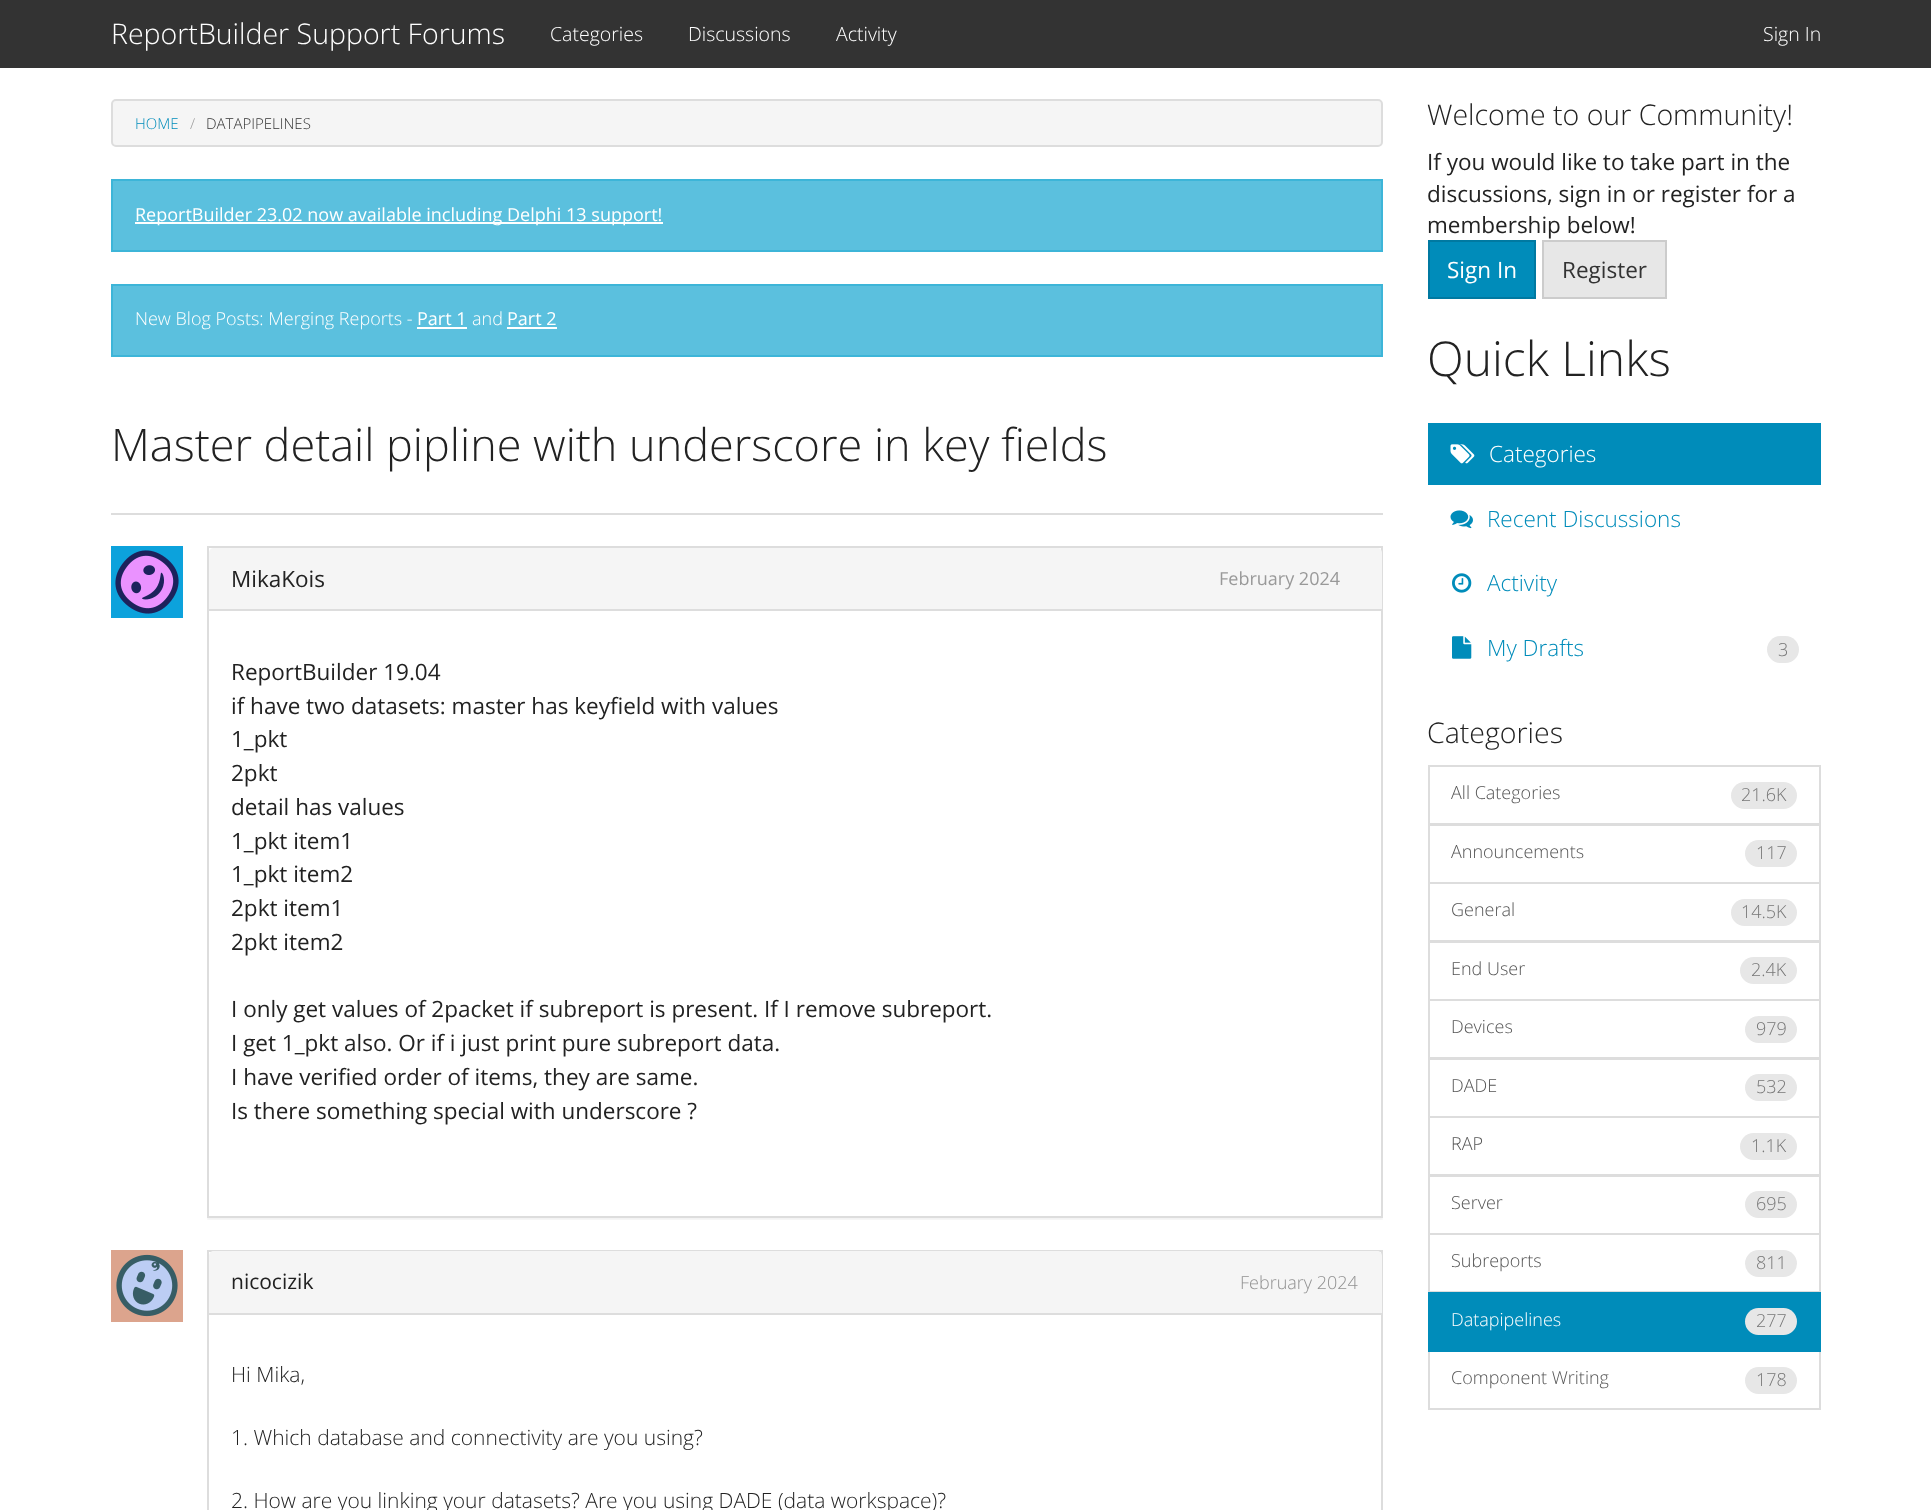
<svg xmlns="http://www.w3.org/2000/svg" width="1931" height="1510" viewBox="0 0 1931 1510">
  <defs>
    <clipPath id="clip1"><rect x="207" y="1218" width="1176" height="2"/></clipPath>
  </defs>
  <rect width="100%" height="100%" fill="rgb(255,255,255)"/>
  <rect x="0" y="0" width="1931" height="68" fill="rgb(51,51,51)"/>
  <text x="111" y="44" font-family="Open Sans" font-size="28.5" font-weight="300" fill="rgb(255,255,255)">ReportBuilder Support Forums</text>
  <g font-family="Open Sans" font-size="19.5" font-weight="300" fill="rgb(255,255,255)">
    <text x="550" y="41">Categories</text>
    <text x="688" y="41">Discussions</text>
    <text x="836" y="41">Activity</text>
    <text x="1763" y="41">Sign In</text>
  </g>
  <rect x="112" y="100" width="1270" height="46" rx="4" fill="rgb(245,245,245)" stroke="rgb(221,221,221)" stroke-width="2"/>
  <text x="135" y="129" font-family="Open Sans" font-size="15" font-weight="300" fill="rgb(0,140,186)">HOME</text>
  <text x="190" y="129" font-family="Open Sans" font-size="15" font-weight="300" fill="rgb(153,153,153)">/</text>
  <text x="206" y="129" font-family="Open Sans" font-size="15" font-weight="300" fill="rgb(51,51,51)">DATAPIPELINES</text>
  <rect x="112" y="180" width="1270" height="71" fill="rgb(91,192,222)" stroke="rgb(61,181,216)" stroke-width="2"/>
  <rect x="135" y="222" width="528" height="2" fill="rgb(255,255,255)"/>
  <text x="135" y="221" font-family="Open Sans" font-size="18" fill="rgb(255,255,255)">ReportBuilder 23.02 now available including Delphi 13 support!</text>
  <rect x="112" y="285" width="1270" height="71" fill="rgb(91,192,222)" stroke="rgb(61,181,216)" stroke-width="2"/>
  <text x="135" y="325" font-family="Open Sans" font-size="18" font-weight="300" fill="rgb(255,255,255)">New Blog Posts: Merging Reports -</text>
  <text x="417" y="325" font-family="Open Sans" font-size="18" fill="rgb(255,255,255)">Part 1</text>
  <rect x="417" y="327" width="50" height="2" fill="rgb(255,255,255)"/>
  <text x="472" y="325" font-family="Open Sans" font-size="18" font-weight="300" fill="rgb(255,255,255)">and</text>
  <text x="507" y="325" font-family="Open Sans" font-size="18" fill="rgb(255,255,255)">Part 2</text>
  <rect x="507" y="327" width="50" height="2" fill="rgb(255,255,255)"/>
  <rect x="111" y="513" width="1272" height="2" fill="rgb(221,221,221)"/>
  <text x="111" y="461" font-family="Open Sans" font-size="45" font-weight="300" fill="rgb(34,34,34)">Master detail pipline with underscore in key fields</text>
  <g clip-path="url(#clip1)">
    <rect x="207" y="548" width="1176" height="672" fill="rgba(0,0,0,0.05)" filter="blur(1px)"/>
  </g>
  <rect x="208" y="547" width="1174" height="670" fill="none" stroke="rgb(221,221,221)" stroke-width="2"/>
  <path d="M214 548H1377C1380 548 1382 550 1382 553V611H209V553C209 550 211 548 214 548Z" fill="rgb(245,245,245)"/>
  <rect x="209" y="609" width="1173" height="2" fill="rgb(221,221,221)"/>
  <image x="111" y="546" width="72" height="72" href="pic1.png"/>
  <text x="231" y="587" font-family="Open Sans" font-size="22.5" fill="rgb(34,34,34)">MikaKois</text>
  <text x="1219" y="585" font-family="Open Sans" font-size="18" fill="rgb(153,153,153)">February 2024</text>
  <g font-family="Open Sans" font-size="22.5" fill="rgb(34,34,34)">
    <text>
      <tspan x="231" y="680">ReportBuilder 19.04</tspan>
      <tspan x="231" y="714">if have two datasets: master has keyfield with values</tspan>
      <tspan x="231" y="747">1_pkt</tspan>
      <tspan x="231" y="781">2pkt</tspan>
      <tspan x="231" y="815">detail has values</tspan>
      <tspan x="231" y="849">1_pkt item1</tspan>
      <tspan x="231" y="882">1_pkt item2</tspan>
      <tspan x="231" y="916">2pkt item1</tspan>
      <tspan x="231" y="950">2pkt item2</tspan>
    </text>
    <text>
      <tspan x="231" y="1017">I only get values of 2packet if subreport is present. If I remove subreport.</tspan>
      <tspan x="231" y="1051">I get 1_pkt also. Or if i just print pure subreport data.</tspan>
      <tspan x="231" y="1085">I have verified order of items, they are same.</tspan>
      <tspan x="231" y="1119">Is there something special with underscore ?</tspan>
    </text>
  </g>
  <rect x="208" y="1251" width="1174" height="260" fill="none" stroke="rgb(221,221,221)" stroke-width="2"/>
  <path d="M214 1251H1377C1380 1251 1382 1253 1382 1256V1314H209V1256C209 1253 211 1251 214 1251Z" fill="rgb(245,245,245)"/>
  <rect x="209" y="1313" width="1173" height="2" fill="rgb(221,221,221)"/>
  <image x="111" y="1250" width="72" height="72" href="pic2.png"/>
  <text x="231" y="1289" font-family="Open Sans" font-size="21" fill="rgb(34,34,34)">nicocizik</text>
  <text x="1240" y="1289" font-family="Open Sans" font-size="18" font-weight="300" fill="rgb(145,145,145)">February 2024</text>
  <g font-family="Open Sans" font-size="21" font-weight="300" fill="rgb(34,34,34)">
    <text x="231" y="1382">Hi Mika,</text>
    <text x="231" y="1445">1. Which database and connectivity are you using?</text>
    <text x="231" y="1508">2. How are you linking your datasets? Are you using DADE (data workspace)?</text>
  </g>
  <text x="1427" y="125" font-family="Open Sans" font-size="28.5" font-weight="300" fill="rgb(34,34,34)">Welcome to our Community!</text>
  <g font-family="Open Sans" font-size="22.5" fill="rgb(34,34,34)">
    <text>
      <tspan x="1427" y="170">If you would like to take part in the</tspan>
      <tspan x="1427" y="202">discussions, sign in or register for a</tspan>
      <tspan x="1427" y="233">membership below!</tspan>
    </text>
  </g>
  <rect x="1429" y="241" width="106" height="57" fill="rgb(0,140,186)" stroke="rgb(0,121,161)" stroke-width="2"/>
  <text x="1447" y="278" font-family="Open Sans" font-size="22.5" fill="rgb(255,255,255)">Sign In</text>
  <rect x="1543" y="241" width="123" height="57" fill="rgb(231,231,231)" stroke="rgb(204,204,204)" stroke-width="2"/>
  <text x="1562" y="278" font-family="Open Sans" font-size="22.5" fill="rgb(51,51,51)">Register</text>
  <text x="1427" y="376" font-family="Open Sans" font-size="48" font-weight="300" fill="rgb(34,34,34)">Quick Links</text>
  <rect x="1428" y="423" width="393" height="62" fill="rgb(0,140,186)"/>
  <image x="1450" y="444" width="25" height="20" href="pic3.png"/>
  <text x="1489" y="462" font-family="Open Sans" font-size="22.5" font-weight="300" fill="rgb(255,255,255)">Categories</text>
  <image x="1450" y="510" width="23" height="19" href="pic4.png"/>
  <text x="1487" y="527" font-family="Open Sans" font-size="22.5" font-weight="300" fill="rgb(0,140,186)">Recent Discussions</text>
  <image x="1452" y="573" width="20" height="20" href="pic5.png"/>
  <text x="1487" y="591" font-family="Open Sans" font-size="22.5" font-weight="300" fill="rgb(0,140,186)">Activity</text>
  <image x="1452" y="636" width="20" height="23" href="pic6.png"/>
  <text x="1487" y="656" font-family="Open Sans" font-size="22.5" font-weight="300" fill="rgb(0,140,186)">My Drafts</text>
  <rect x="1767" y="636" width="32" height="27" rx="13.5" fill="rgb(231,231,231)"/>
  <text x="1778" y="656" font-family="Open Sans" font-size="18" font-weight="300" fill="rgb(119,119,119)">3</text>
  <text x="1427" y="743" font-family="Open Sans" font-size="28.5" font-weight="300" fill="rgb(34,34,34)">Categories</text>
  <rect x="1429" y="766" width="391" height="58" fill="none" stroke="rgb(221,221,221)" stroke-width="2"/>
  <text x="1451" y="799" font-family="Open Sans" font-size="18" font-weight="300" fill="rgb(85,85,85)">All Categories</text>
  <rect x="1731" y="782" width="66" height="27" rx="13.5" fill="rgb(231,231,231)"/>
  <text x="1741" y="801" font-family="Open Sans" font-size="18" font-weight="300" fill="rgb(119,119,119)">21.6K</text>
  <rect x="1429" y="825" width="391" height="58" fill="none" stroke="rgb(221,221,221)" stroke-width="2"/>
  <text x="1451" y="858" font-family="Open Sans" font-size="18" font-weight="300" fill="rgb(85,85,85)">Announcements</text>
  <rect x="1745" y="840" width="52" height="27" rx="13.5" fill="rgb(231,231,231)"/>
  <text x="1756" y="859" font-family="Open Sans" font-size="18" font-weight="300" fill="rgb(119,119,119)">117</text>
  <rect x="1429" y="883" width="391" height="58" fill="none" stroke="rgb(221,221,221)" stroke-width="2"/>
  <text x="1451" y="916" font-family="Open Sans" font-size="18" font-weight="300" fill="rgb(85,85,85)">General</text>
  <rect x="1731" y="899" width="66" height="27" rx="13.5" fill="rgb(231,231,231)"/>
  <text x="1741" y="918" font-family="Open Sans" font-size="18" font-weight="300" fill="rgb(119,119,119)">14.5K</text>
  <rect x="1429" y="942" width="391" height="58" fill="none" stroke="rgb(221,221,221)" stroke-width="2"/>
  <text x="1451" y="975" font-family="Open Sans" font-size="18" font-weight="300" fill="rgb(85,85,85)">End User</text>
  <rect x="1740" y="957" width="57" height="27" rx="13.5" fill="rgb(231,231,231)"/>
  <text x="1751" y="976" font-family="Open Sans" font-size="18" font-weight="300" fill="rgb(119,119,119)">2.4K</text>
  <rect x="1429" y="1000" width="391" height="58" fill="none" stroke="rgb(221,221,221)" stroke-width="2"/>
  <text x="1451" y="1033" font-family="Open Sans" font-size="18" font-weight="300" fill="rgb(85,85,85)">Devices</text>
  <rect x="1745" y="1016" width="52" height="27" rx="13.5" fill="rgb(231,231,231)"/>
  <text x="1756" y="1035" font-family="Open Sans" font-size="18" font-weight="300" fill="rgb(119,119,119)">979</text>
  <rect x="1429" y="1059" width="391" height="58" fill="none" stroke="rgb(221,221,221)" stroke-width="2"/>
  <text x="1451" y="1092" font-family="Open Sans" font-size="18" font-weight="300" fill="rgb(85,85,85)">DADE</text>
  <rect x="1745" y="1074" width="52" height="27" rx="13.5" fill="rgb(231,231,231)"/>
  <text x="1756" y="1093" font-family="Open Sans" font-size="18" font-weight="300" fill="rgb(119,119,119)">532</text>
  <rect x="1429" y="1117" width="391" height="58" fill="none" stroke="rgb(221,221,221)" stroke-width="2"/>
  <text x="1451" y="1150" font-family="Open Sans" font-size="18" font-weight="300" fill="rgb(85,85,85)">RAP</text>
  <rect x="1740" y="1133" width="57" height="27" rx="13.5" fill="rgb(231,231,231)"/>
  <text x="1751" y="1152" font-family="Open Sans" font-size="18" font-weight="300" fill="rgb(119,119,119)">1.1K</text>
  <rect x="1429" y="1176" width="391" height="58" fill="none" stroke="rgb(221,221,221)" stroke-width="2"/>
  <text x="1451" y="1209" font-family="Open Sans" font-size="18" font-weight="300" fill="rgb(85,85,85)">Server</text>
  <rect x="1745" y="1191" width="52" height="27" rx="13.5" fill="rgb(231,231,231)"/>
  <text x="1756" y="1210" font-family="Open Sans" font-size="18" font-weight="300" fill="rgb(119,119,119)">695</text>
  <rect x="1429" y="1234" width="391" height="58" fill="none" stroke="rgb(221,221,221)" stroke-width="2"/>
  <text x="1451" y="1267" font-family="Open Sans" font-size="18" font-weight="300" fill="rgb(85,85,85)">Subreports</text>
  <rect x="1745" y="1250" width="52" height="27" rx="13.5" fill="rgb(231,231,231)"/>
  <text x="1756" y="1269" font-family="Open Sans" font-size="18" font-weight="300" fill="rgb(119,119,119)">811</text>
  <rect x="1429" y="1351" width="391" height="58" fill="none" stroke="rgb(221,221,221)" stroke-width="2"/>
  <rect x="1428" y="1292" width="393" height="60" fill="rgb(0,140,186)"/>
  <text x="1451" y="1326" font-family="Open Sans" font-size="18" font-weight="300" fill="rgb(255,255,255)">Datapipelines</text>
  <rect x="1745" y="1308" width="52" height="27" rx="13.5" fill="rgb(231,231,231)"/>
  <text x="1756" y="1327" font-family="Open Sans" font-size="18" font-weight="300" fill="rgb(119,119,119)">277</text>
  <text x="1451" y="1384" font-family="Open Sans" font-size="18" font-weight="300" fill="rgb(85,85,85)">Component Writing</text>
  <rect x="1745" y="1367" width="52" height="27" rx="13.5" fill="rgb(231,231,231)"/>
  <text x="1756" y="1386" font-family="Open Sans" font-size="18" font-weight="300" fill="rgb(119,119,119)">178</text>
</svg>
